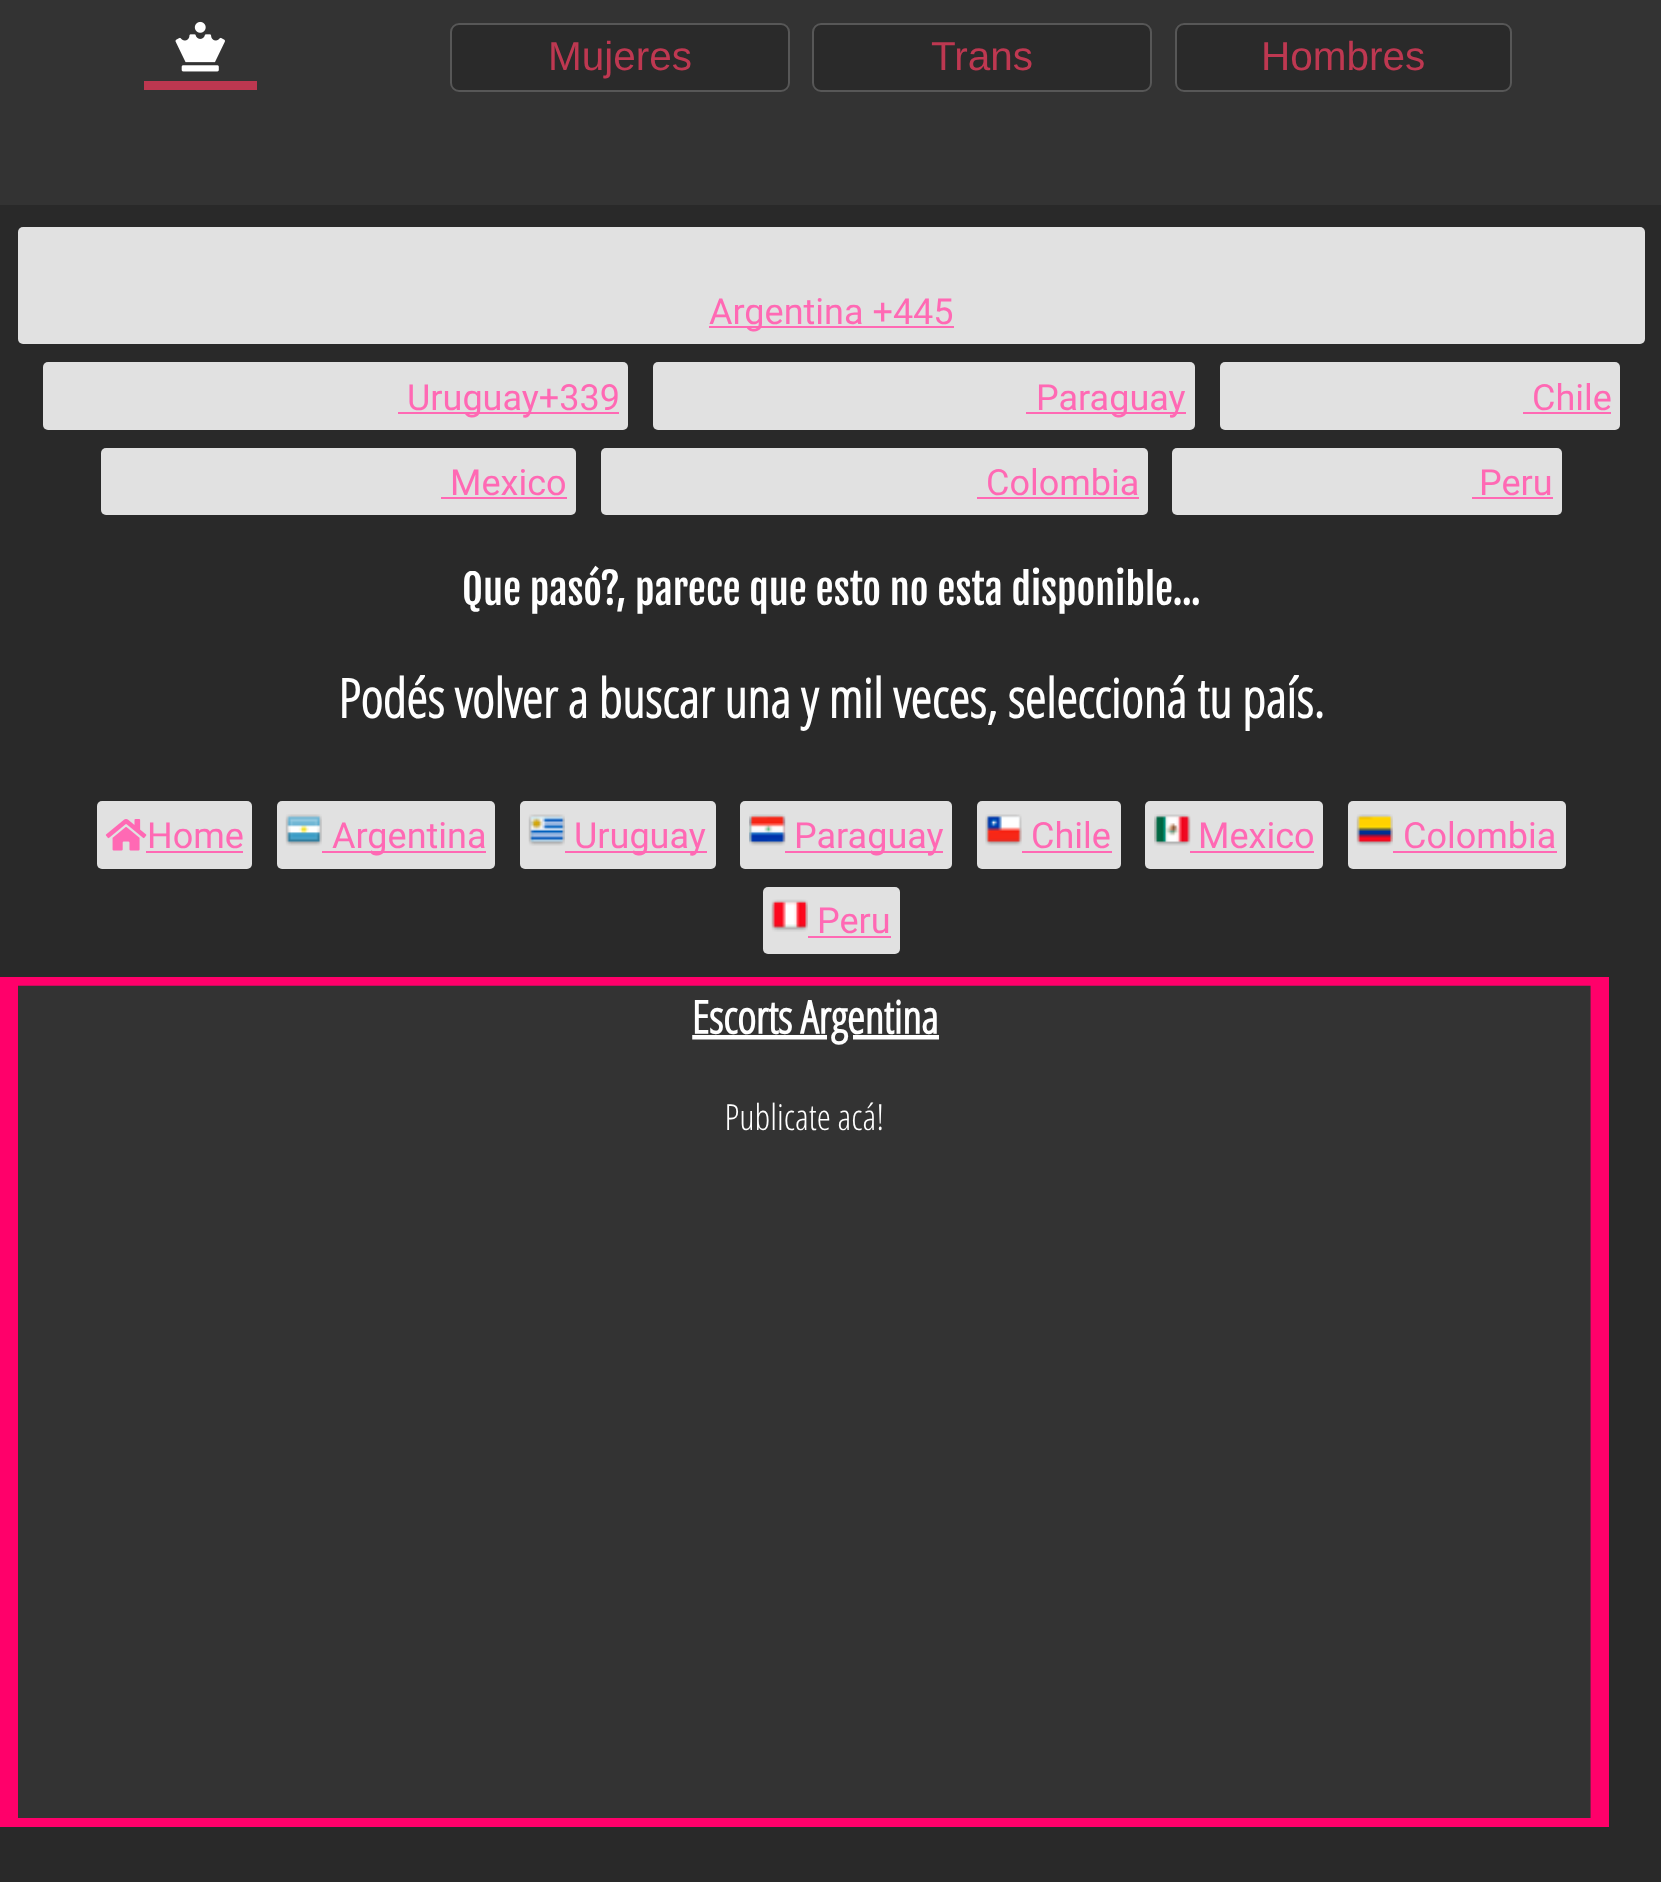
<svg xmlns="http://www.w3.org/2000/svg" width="1661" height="1882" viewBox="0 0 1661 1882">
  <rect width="100%" height="100%" fill="rgb(51,51,51)"/>
  <rect x="144" y="81" width="113" height="9" fill="rgb(189,55,80)"/>
  <image x="175" y="21" width="50" height="51" href="pic1.png"/>
  <rect x="450" y="23" width="340" height="69" rx="9" fill="rgb(42,42,42)"/>
  <rect x="451" y="24" width="338" height="67" rx="8" fill="none" stroke="rgba(204,204,204,0.28)" stroke-width="2"/>
  <text x="548" y="70" font-family="Liberation Sans" font-size="40.5" fill="rgb(190,56,81)">Mujeres</text>
  <rect x="812" y="23" width="340" height="69" rx="9" fill="rgb(42,42,42)"/>
  <rect x="813" y="24" width="338" height="67" rx="8" fill="none" stroke="rgba(204,204,204,0.28)" stroke-width="2"/>
  <text x="931" y="70" font-family="Liberation Sans" font-size="40.5" fill="rgb(190,56,81)">Trans</text>
  <rect x="1175" y="23" width="337" height="69" rx="9" fill="rgb(42,42,42)"/>
  <rect x="1176" y="24" width="335" height="67" rx="8" fill="none" stroke="rgba(204,204,204,0.28)" stroke-width="2"/>
  <text x="1261" y="70" font-family="Liberation Sans" font-size="40.5" fill="rgb(190,56,81)">Hombres</text>
  <rect x="0" y="205" width="1661" height="1677" fill="rgb(41,41,41)"/>
  <rect x="18" y="227" width="1627" height="117" rx="5" fill="rgb(225,225,225)"/>
  <rect x="709" y="326" width="245" height="2" fill="rgb(255,105,180)"/>
  <text x="709" y="324" font-family="Roboto" font-size="36" fill="rgb(255,105,180)">Argentina +445</text>
  <rect x="43" y="362" width="585" height="68" rx="5" fill="rgb(225,225,225)"/>
  <rect x="398" y="412" width="140" height="2" fill="rgb(255,105,180)"/>
  <text x="407" y="410" font-family="Roboto" font-size="36" fill="rgb(255,105,180)">Uruguay+339</text>
  <rect x="538" y="412" width="81" height="2" fill="rgb(255,105,180)"/>
  <rect x="653" y="362" width="542" height="68" rx="5" fill="rgb(225,225,225)"/>
  <rect x="1026" y="412" width="160" height="2" fill="rgb(255,105,180)"/>
  <text x="1036" y="410" font-family="Roboto" font-size="36" fill="rgb(255,105,180)">Paraguay</text>
  <rect x="1220" y="362" width="400" height="68" rx="5" fill="rgb(225,225,225)"/>
  <text x="1532" y="410" font-family="Roboto" font-size="36" fill="rgb(255,105,180)">Chile</text>
  <rect x="1523" y="412" width="88" height="2" fill="rgb(255,105,180)"/>
  <rect x="101" y="448" width="475" height="67" rx="5" fill="rgb(225,225,225)"/>
  <text x="450" y="495" font-family="Roboto" font-size="36" fill="rgb(255,105,180)">Mexico</text>
  <rect x="441" y="497" width="126" height="2" fill="rgb(255,105,180)"/>
  <rect x="601" y="448" width="547" height="67" rx="5" fill="rgb(225,225,225)"/>
  <text x="986" y="495" font-family="Roboto" font-size="36" fill="rgb(255,105,180)">Colombia</text>
  <rect x="977" y="497" width="162" height="2" fill="rgb(255,105,180)"/>
  <rect x="1172" y="448" width="390" height="67" rx="5" fill="rgb(225,225,225)"/>
  <text x="1479" y="495" font-family="Roboto" font-size="36" fill="rgb(255,105,180)">Peru</text>
  <rect x="1472" y="497" width="81" height="2" fill="rgb(255,105,180)"/>
  <text x="462" y="605" font-family="Fjalla One" font-size="40.5" fill="rgb(255,255,255)">Que pasó?, parece que esto no esta disponible...</text>
  <text x="338" y="718" font-family="Open Sans Condensed" font-size="54" font-weight="bold" fill="rgb(255,255,255)">Podés volver a buscar una y mil veces, seleccioná tu país.</text>
  <rect x="97" y="801" width="155" height="68" rx="5" fill="rgb(225,225,225)"/>
  <image x="105" y="819" width="42" height="32" href="pic2.png"/>
  <text x="147" y="848" font-family="Roboto" font-size="36" fill="rgb(255,105,180)">Home</text>
  <rect x="146" y="851" width="97" height="2" fill="rgb(255,105,180)"/>
  <rect x="277" y="801" width="218" height="68" rx="5" fill="rgb(225,225,225)"/>
  <image x="285" y="814" width="37" height="32" href="pic3.png"/>
  <rect x="322" y="851" width="164" height="2" fill="rgb(255,105,180)"/>
  <text x="332" y="848" font-family="Roboto" font-size="36" fill="rgb(255,105,180)">Argentina</text>
  <rect x="520" y="801" width="196" height="68" rx="5" fill="rgb(225,225,225)"/>
  <image x="528" y="814" width="37" height="32" href="pic4.png"/>
  <rect x="565" y="851" width="142" height="2" fill="rgb(255,105,180)"/>
  <text x="574" y="848" font-family="Roboto" font-size="36" fill="rgb(255,105,180)">Uruguay</text>
  <rect x="740" y="801" width="212" height="68" rx="5" fill="rgb(225,225,225)"/>
  <image x="749" y="814" width="37" height="32" href="pic5.png"/>
  <rect x="785" y="851" width="158" height="2" fill="rgb(255,105,180)"/>
  <text x="794" y="848" font-family="Roboto" font-size="36" fill="rgb(255,105,180)">Paraguay</text>
  <rect x="977" y="801" width="144" height="68" rx="5" fill="rgb(225,225,225)"/>
  <image x="985" y="814" width="37" height="32" href="pic6.png"/>
  <text x="1031" y="848" font-family="Roboto" font-size="36" fill="rgb(255,105,180)">Chile</text>
  <rect x="1022" y="851" width="90" height="2" fill="rgb(255,105,180)"/>
  <rect x="1145" y="801" width="178" height="68" rx="5" fill="rgb(225,225,225)"/>
  <image x="1154" y="814" width="37" height="32" href="pic7.png"/>
  <text x="1198" y="848" font-family="Roboto" font-size="36" fill="rgb(255,105,180)">Mexico</text>
  <rect x="1190" y="851" width="124" height="2" fill="rgb(255,105,180)"/>
  <rect x="1348" y="801" width="218" height="68" rx="5" fill="rgb(225,225,225)"/>
  <image x="1356" y="814" width="37" height="32" href="pic8.png"/>
  <text x="1403" y="848" font-family="Roboto" font-size="36" fill="rgb(255,105,180)">Colombia</text>
  <rect x="1393" y="851" width="164" height="2" fill="rgb(255,105,180)"/>
  <rect x="763" y="887" width="137" height="67" rx="5" fill="rgb(225,225,225)"/>
  <image x="771" y="899" width="37" height="33" href="pic9.png"/>
  <text x="817" y="933" font-family="Roboto" font-size="36" fill="rgb(255,105,180)">Peru</text>
  <rect x="808" y="936" width="83" height="2" fill="rgb(255,105,180)"/>
  <rect x="0" y="977" width="1609" height="850" fill="rgb(255,0,106)"/>
  <image x="18" y="985" width="1573" height="833" href="pic10.png"/>
</svg>
